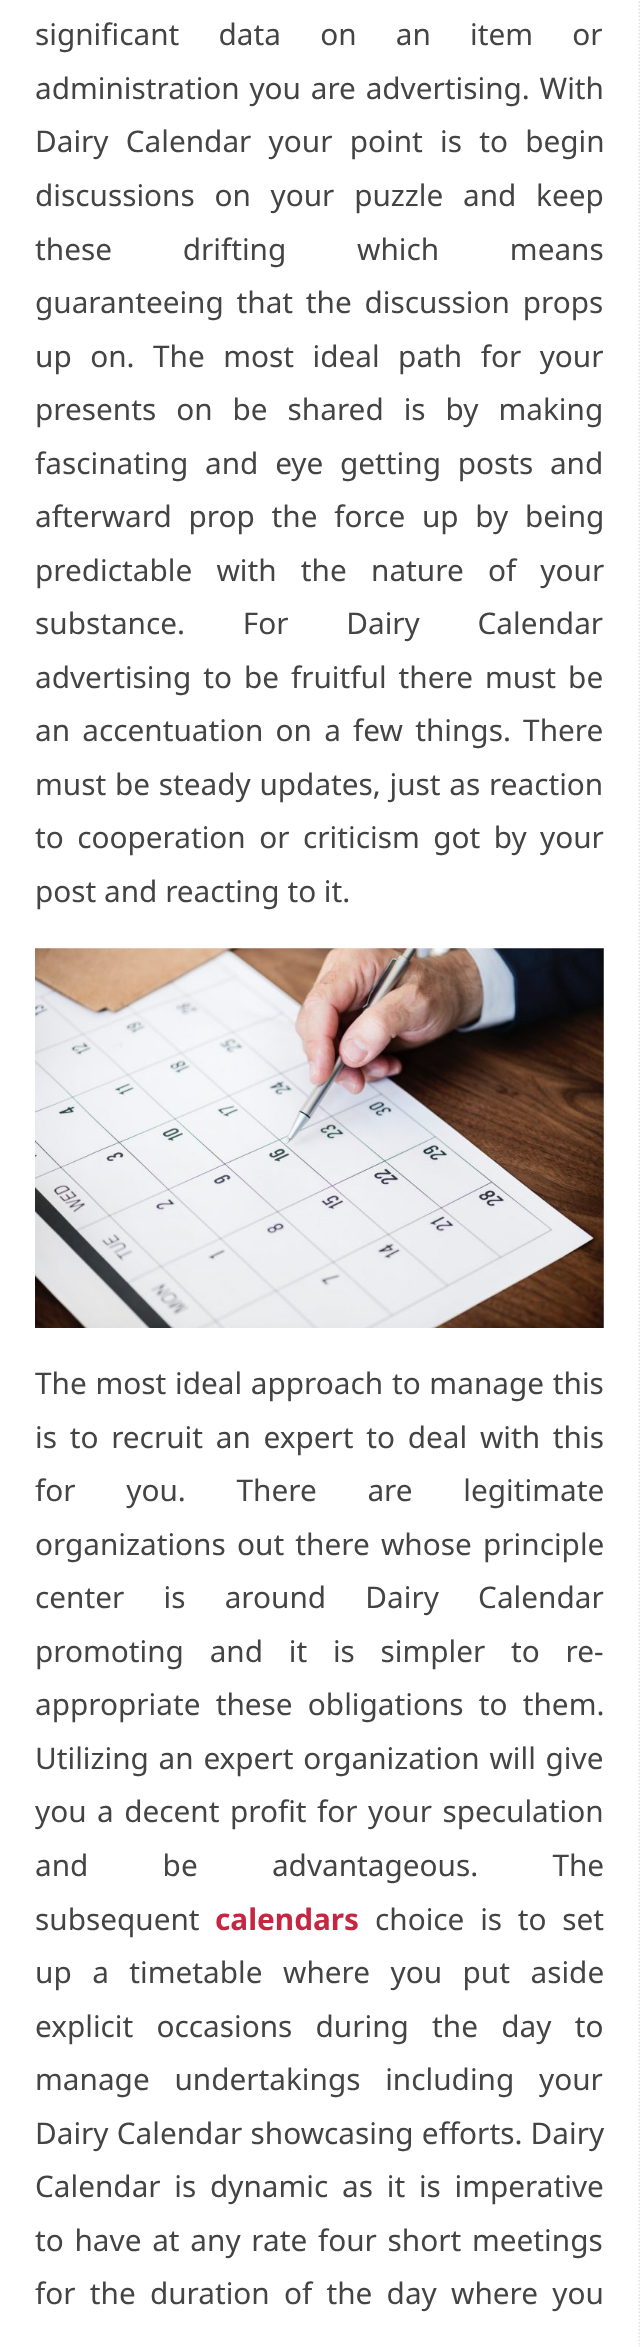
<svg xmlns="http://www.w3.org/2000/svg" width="640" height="2347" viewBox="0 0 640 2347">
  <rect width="100%" height="100%" fill="rgb(255,255,255)"/>
  <path d="M639.5-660V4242" fill="none" stroke="rgb(226,226,226)" stroke-width="1.8" stroke-dasharray="1.75 1.75"/>
  <g font-family="Noto Sans" font-size="29.75" fill="rgb(68,68,68)">
    <text>
      <tspan x="35" y="45" word-spacing="31.5">significant data on an item or</tspan>
      <tspan x="35" y="99" word-spacing="2">administration you are advertising. With</tspan>
      <tspan x="35" y="152" word-spacing="9.5">Dairy Calendar your point is to begin</tspan>
      <tspan x="35" y="206" word-spacing="12">discussions on your puzzle and keep</tspan>
      <tspan x="35" y="260" word-spacing="63">these drifting which means</tspan>
      <tspan x="35" y="313" word-spacing="5">guaranteeing that the discussion props</tspan>
      <tspan x="35" y="367" word-spacing="10.75">up on. The most ideal path for your</tspan>
      <tspan x="35" y="420" word-spacing="12.25">presents on be shared is by making</tspan>
      <tspan x="35" y="474" word-spacing="9">fascinating and eye getting posts and</tspan>
      <tspan x="35" y="527" word-spacing="9">afterward prop the force up by being</tspan>
      <tspan x="35" y="581" word-spacing="16.5">predictable with the nature of your</tspan>
      <tspan x="35" y="634" word-spacing="50">substance. For Dairy Calendar</tspan>
      <tspan x="35" y="688" word-spacing="4.25">advertising to be fruitful there must be</tspan>
      <tspan x="35" y="741" word-spacing="4.5">an accentuation on a few things. There</tspan>
      <tspan x="35" y="795" word-spacing="1">must be steady updates, just as reaction</tspan>
      <tspan x="35" y="848" word-spacing="5.75">to cooperation or criticism got by your</tspan>
      <tspan x="35" y="902">post and reacting to it.</tspan>
    </text>
  </g>
  <image x="35" y="948" width="569" height="380" href="pic1.png"/>
  <g font-family="Noto Sans" font-size="29.75" fill="rgb(68,68,68)">
    <text>
      <tspan x="35" y="1394" word-spacing="1">The most ideal approach to manage this</tspan>
      <tspan x="35" y="1448" word-spacing="5">is to recruit an expert to deal with this</tspan>
      <tspan x="35" y="1501" word-spacing="43">for you. There are legitimate</tspan>
      <tspan x="35" y="1555" word-spacing="3.5">organizations out there whose principle</tspan>
      <tspan x="35" y="1608" word-spacing="31.5">center is around Dairy Calendar</tspan>
      <tspan x="35" y="1662" word-spacing="18">promoting and it is simpler to re-</tspan>
      <tspan x="35" y="1715" word-spacing="7.5">appropriate these obligations to them.</tspan>
      <tspan x="35" y="1769" word-spacing="2">Utilizing an expert organization will give</tspan>
      <tspan x="35" y="1822" word-spacing="2.75">you a decent profit for your speculation</tspan>
      <tspan x="35" y="1876" word-spacing="66.5">and be advantageous. The</tspan>
      <tspan x="35" y="1930">subsequent</tspan>
    </text>
  </g>
  <text x="215" y="1930" font-family="Noto Sans" font-size="29.75" font-weight="bold" fill="rgb(198,38,65)">calendars</text>
  <g font-family="Noto Sans" font-size="29.75" fill="rgb(68,68,68)">
    <text x="375" y="1930" word-spacing="8">choice is to set</text>
    <text>
      <tspan x="35" y="1983" word-spacing="12.75">up a timetable where you put aside</tspan>
      <tspan x="35" y="2037" word-spacing="15.5">explicit occasions during the day to</tspan>
      <tspan x="35" y="2090" word-spacing="17">manage undertakings including your</tspan>
      <tspan x="35" y="2144" word-spacing="0.5">Dairy Calendar showcasing efforts. Dairy</tspan>
      <tspan x="35" y="2197" word-spacing="6">Calendar is dynamic as it is imperative</tspan>
      <tspan x="35" y="2251" word-spacing="3">to have at any rate four short meetings</tspan>
      <tspan x="35" y="2304" word-spacing="6.5">for the duration of the day where you</tspan>
    </text>
  </g>
</svg>
